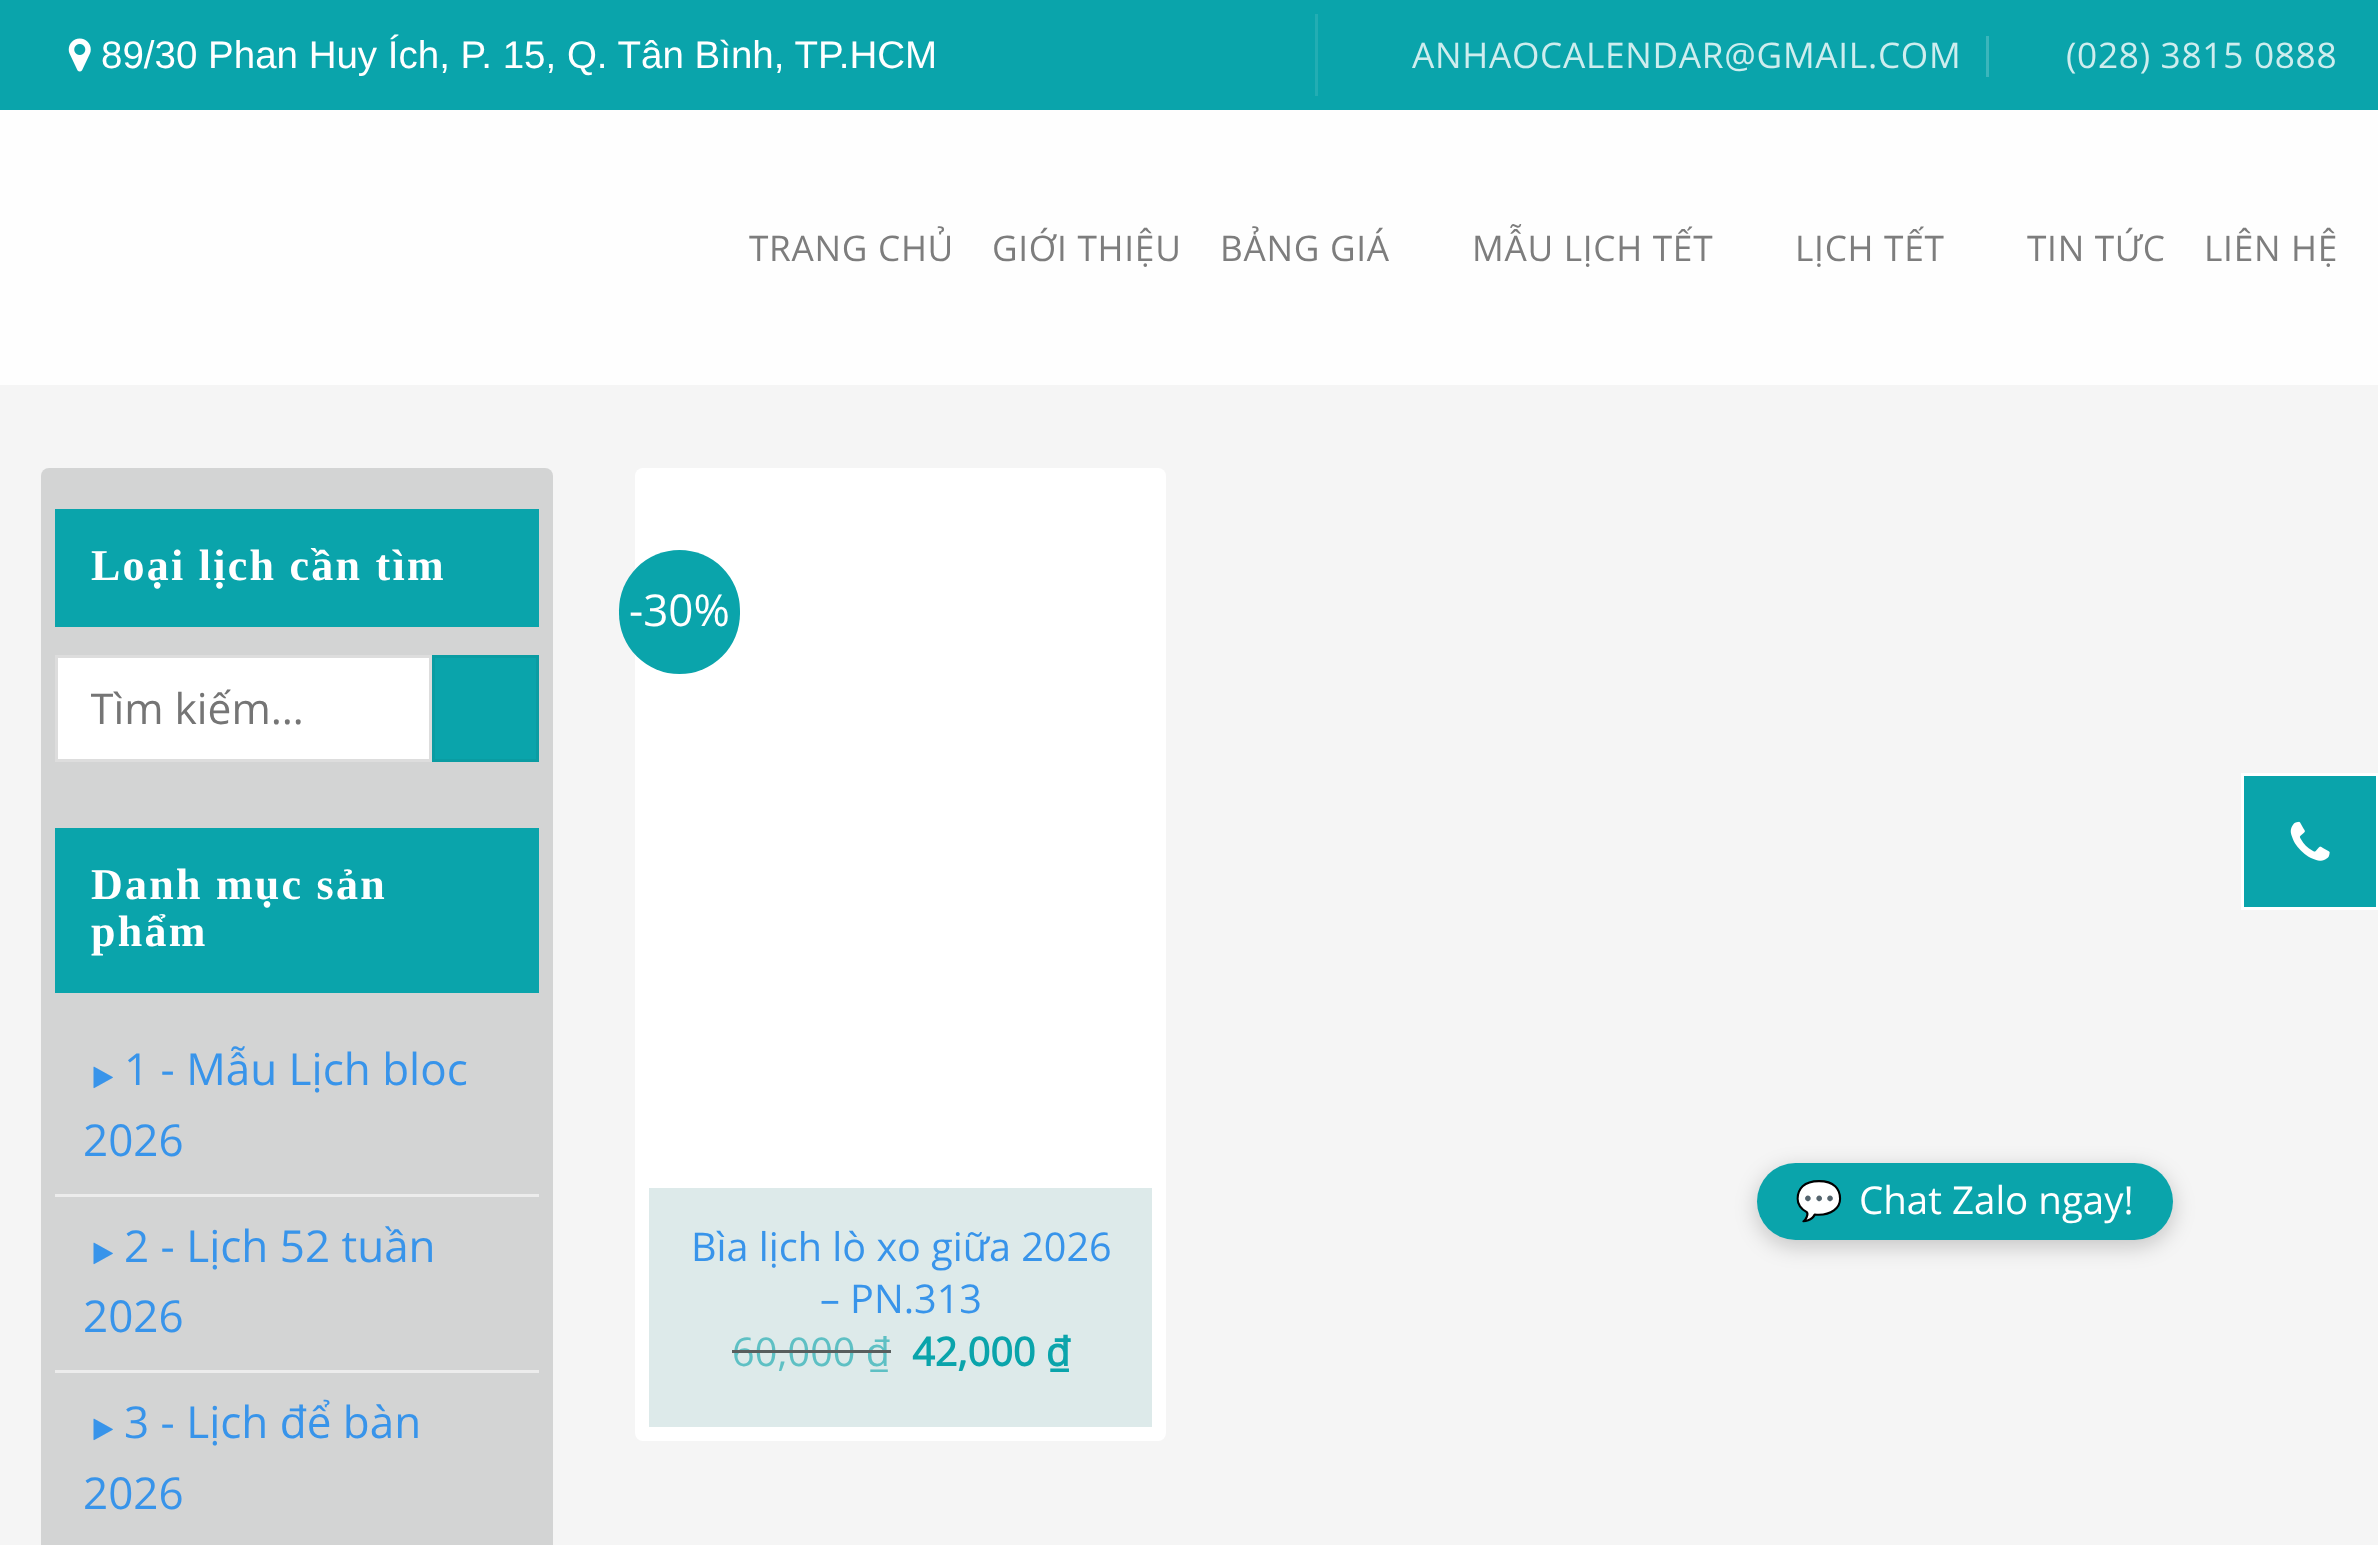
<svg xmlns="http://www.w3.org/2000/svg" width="2378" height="1545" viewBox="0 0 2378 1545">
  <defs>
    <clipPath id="clip1"><rect x="91" y="677" width="297" height="60"/></clipPath>
  </defs>
  <rect width="100%" height="100%" fill="rgb(245,245,245)"/>
  <rect x="0" y="0" width="2378" height="110" fill="rgb(10,164,171)"/>
  <image x="68" y="38" width="23" height="34" href="pic1.png"/>
  <text x="101" y="68" font-family="Liberation Sans" font-size="38.5" fill="rgb(255,255,255)">89/30 Phan Huy Ích, P. 15, Q. Tân Bình, TP.HCM</text>
  <rect x="1315" y="14" width="3" height="82" fill="rgb(35,173,179)"/>
  <text x="1412" y="68" font-family="Open Sans" font-size="35.25" letter-spacing="0.7" fill="rgb(206,237,238)">ANHAOCALENDAR@GMAIL.COM</text>
  <rect x="1986" y="36" width="3" height="41" fill="rgb(59,182,188)"/>
  <text x="2066" y="68" font-family="Open Sans" font-size="35.25" letter-spacing="0.7" fill="rgb(206,237,238)">(028) 3815 0888</text>
  <rect x="0" y="110" width="2378" height="275" fill="rgb(254,254,254)"/>
  <g font-family="Open Sans" font-size="35.25" letter-spacing="0.7" fill="rgb(125,125,125)">
    <text x="749" y="261">TRANG CHỦ</text>
    <text x="992" y="261">GIỚI THIỆU</text>
    <text x="1220" y="261">BẢNG GIÁ</text>
    <text x="1472" y="261">MẪU LỊCH TẾT</text>
    <text x="1795" y="261">LỊCH TẾT</text>
    <text x="2027" y="261">TIN TỨC</text>
    <text x="2204" y="261">LIÊN HỆ</text>
  </g>
  <rect x="41" y="468" width="512" height="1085" rx="8" fill="rgb(211,212,212)"/>
  <rect x="55" y="509" width="484" height="118" fill="rgb(10,164,171)"/>
  <text x="91" y="580" font-family="Liberation Serif" font-size="44" font-weight="bold" letter-spacing="2.25" fill="rgb(255,255,255)">Loại lịch cần tìm</text>
  <rect x="56.5" y="656.5" width="374" height="104" fill="rgb(255,255,255)" stroke="rgb(221,221,221)" stroke-width="3"/>
  <g clip-path="url(#clip1)">
    <text x="90" y="724" font-family="Open Sans" font-size="42.5" fill="rgb(117,117,117)">Tìm kiếm…</text>
  </g>
  <rect x="433.5" y="656.5" width="104" height="104" fill="rgb(10,164,171)" stroke="rgb(10,156,162)" stroke-width="3"/>
  <rect x="55" y="828" width="484" height="165" fill="rgb(10,164,171)"/>
  <g font-family="Liberation Serif" font-size="44" font-weight="bold" letter-spacing="2.25" fill="rgb(255,255,255)">
    <text>
      <tspan x="91" y="899">Danh mục sản</tspan>
      <tspan x="91" y="946">phẩm</tspan>
    </text>
  </g>
  <image x="93" y="1066" width="20" height="23" href="pic2.png"/>
  <g font-family="Open Sans" font-size="44" fill="rgb(56,148,234)">
    <text x="124" y="1085">1 - Mẫu Lịch bloc</text>
    <text x="83" y="1156">2026</text>
  </g>
  <rect x="55" y="1194" width="484" height="3" fill="rgb(236,236,236)"/>
  <image x="93" y="1242" width="20" height="23" href="pic2.png"/>
  <g font-family="Open Sans" font-size="44" fill="rgb(56,148,234)">
    <text x="124" y="1262">2 - Lịch 52 tuần</text>
    <text x="83" y="1332">2026</text>
  </g>
  <rect x="55" y="1370" width="484" height="3" fill="rgb(236,236,236)"/>
  <image x="93" y="1418" width="20" height="23" href="pic2.png"/>
  <g font-family="Open Sans" font-size="44" fill="rgb(56,148,234)">
    <text x="124" y="1438">3 - Lịch để bàn</text>
    <text x="83" y="1509">2026</text>
  </g>
  <rect x="635" y="468" width="531" height="973" rx="8" fill="rgb(255,255,255)"/>
  <rect x="619" y="550" width="121" height="124" rx="60.5" fill="rgb(10,164,171)"/>
  <text x="629" y="626" font-family="Open Sans" font-size="44" fill="rgb(255,255,255)">-30%</text>
  <rect x="649" y="1188" width="503" height="239" fill="rgb(221,234,234)"/>
  <g font-family="Open Sans" font-size="39.6" fill="rgb(56,148,234)">
    <text x="691" y="1261">Bìa lịch lò xo giữa 2026</text>
    <text x="820" y="1313">– PN.313</text>
  </g>
  <text x="732" y="1366" font-family="Open Sans" font-size="39.6" fill="rgb(94,192,196)">60,000 ₫</text>
  <rect x="732" y="1350" width="159" height="3" fill="rgb(88,94,94)"/>
  <text x="912" y="1366" font-family="Open Sans" font-size="39.6" font-weight="bold" fill="rgb(10,164,171)">42,000 ₫</text>
  <rect x="2242.5" y="774.5" width="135" height="134" fill="rgb(10,164,171)" stroke="rgb(255,255,255)" stroke-width="3"/>
  <image x="2290" y="821" width="40" height="40" href="pic3.png"/>
  <rect x="1757" y="1169" width="416" height="77" rx="38.5" fill="rgba(0,0,0,0.2)" filter="blur(11px)"/>
  <rect x="1757" y="1163" width="416" height="77" rx="38.5" fill="rgb(10,164,171)"/>
  <text x="1795" y="1214" font-family="Noto Color Emoji" font-size="38.5" fill="rgb(255,255,255)">💬</text>
  <text x="1859" y="1214" font-family="Open Sans" font-size="38.5" fill="rgb(255,255,255)">Chat Zalo ngay!</text>
</svg>
